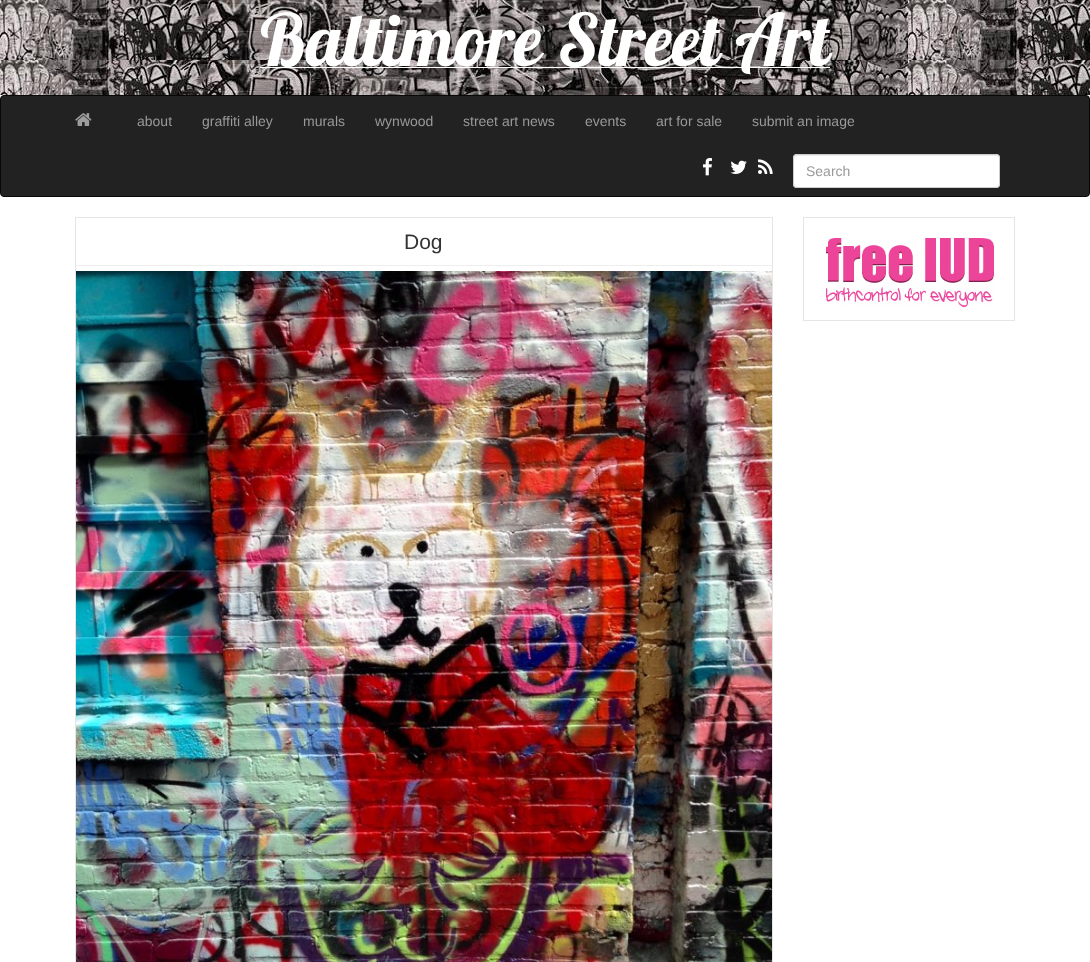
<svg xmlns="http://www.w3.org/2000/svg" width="1090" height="962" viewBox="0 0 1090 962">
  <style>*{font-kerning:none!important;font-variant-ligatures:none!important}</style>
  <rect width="100%" height="100%" fill="rgb(255,255,255)"/>
  <image x="0" y="0" width="1090" height="95" href="pic1.png"/>
  <rect x="260" y="67" width="570" height="1" fill="rgb(255,255,255)"/>
  <text x="260" y="66" font-family="Lobster" font-size="72" fill="rgb(255,255,255)">Baltimore Street Art</text>
  <rect x="0.5" y="95.5" width="1089" height="101" rx="3.5" fill="rgb(34,34,34)" stroke="rgb(8,8,8)"/>
  <image x="75" y="113" width="17" height="13" href="pic2.png"/>
  <g font-family="Liberation Sans" font-size="14" fill="rgb(153,153,153)">
    <text x="137" y="126">about</text>
    <text x="202" y="126">graffiti alley</text>
    <text x="303" y="126">murals</text>
    <text x="375" y="126">wynwood</text>
    <text x="463" y="126">street art news</text>
    <text x="585" y="126">events</text>
    <text x="656" y="126">art for sale</text>
    <text x="752" y="126">submit an image</text>
  </g>
  <image x="703" y="158" width="9" height="18" href="pic3.png"/>
  <image x="730" y="160" width="17" height="14" href="pic4.png"/>
  <image x="758" y="159" width="15" height="15" href="pic5.png"/>
  <rect x="793" y="154" width="207" height="34" rx="4" fill="rgb(255,255,255)"/>
  <path d="M797 156H996C998 156 999 157 999 159C999 157 998 155 996 155H797C795 155 794 157 794 159C794 157 795 156 797 156Z" fill="rgb(236,236,236)"/>
  <rect x="793.5" y="154.5" width="206" height="33" rx="3.5" fill="none" stroke="rgb(204,204,204)"/>
  <text x="806" y="176" font-family="Liberation Sans" font-size="14" fill="rgb(153,153,153)">Search</text>
  <rect x="75.5" y="217.5" width="697" height="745" fill="none" stroke="rgb(229,229,229)"/>
  <rect x="76" y="265" width="696" height="1" fill="rgb(238,238,238)"/>
  <text x="404" y="249" font-family="Liberation Sans" font-size="21" fill="rgb(51,51,51)">Dog</text>
  <image x="76" y="271" width="696" height="691" href="pic6.png"/>
  <rect x="803.5" y="217.5" width="211" height="103" fill="none" stroke="rgb(229,229,229)"/>
  <image x="826" y="238" width="168" height="70" href="pic7.png"/>
</svg>
